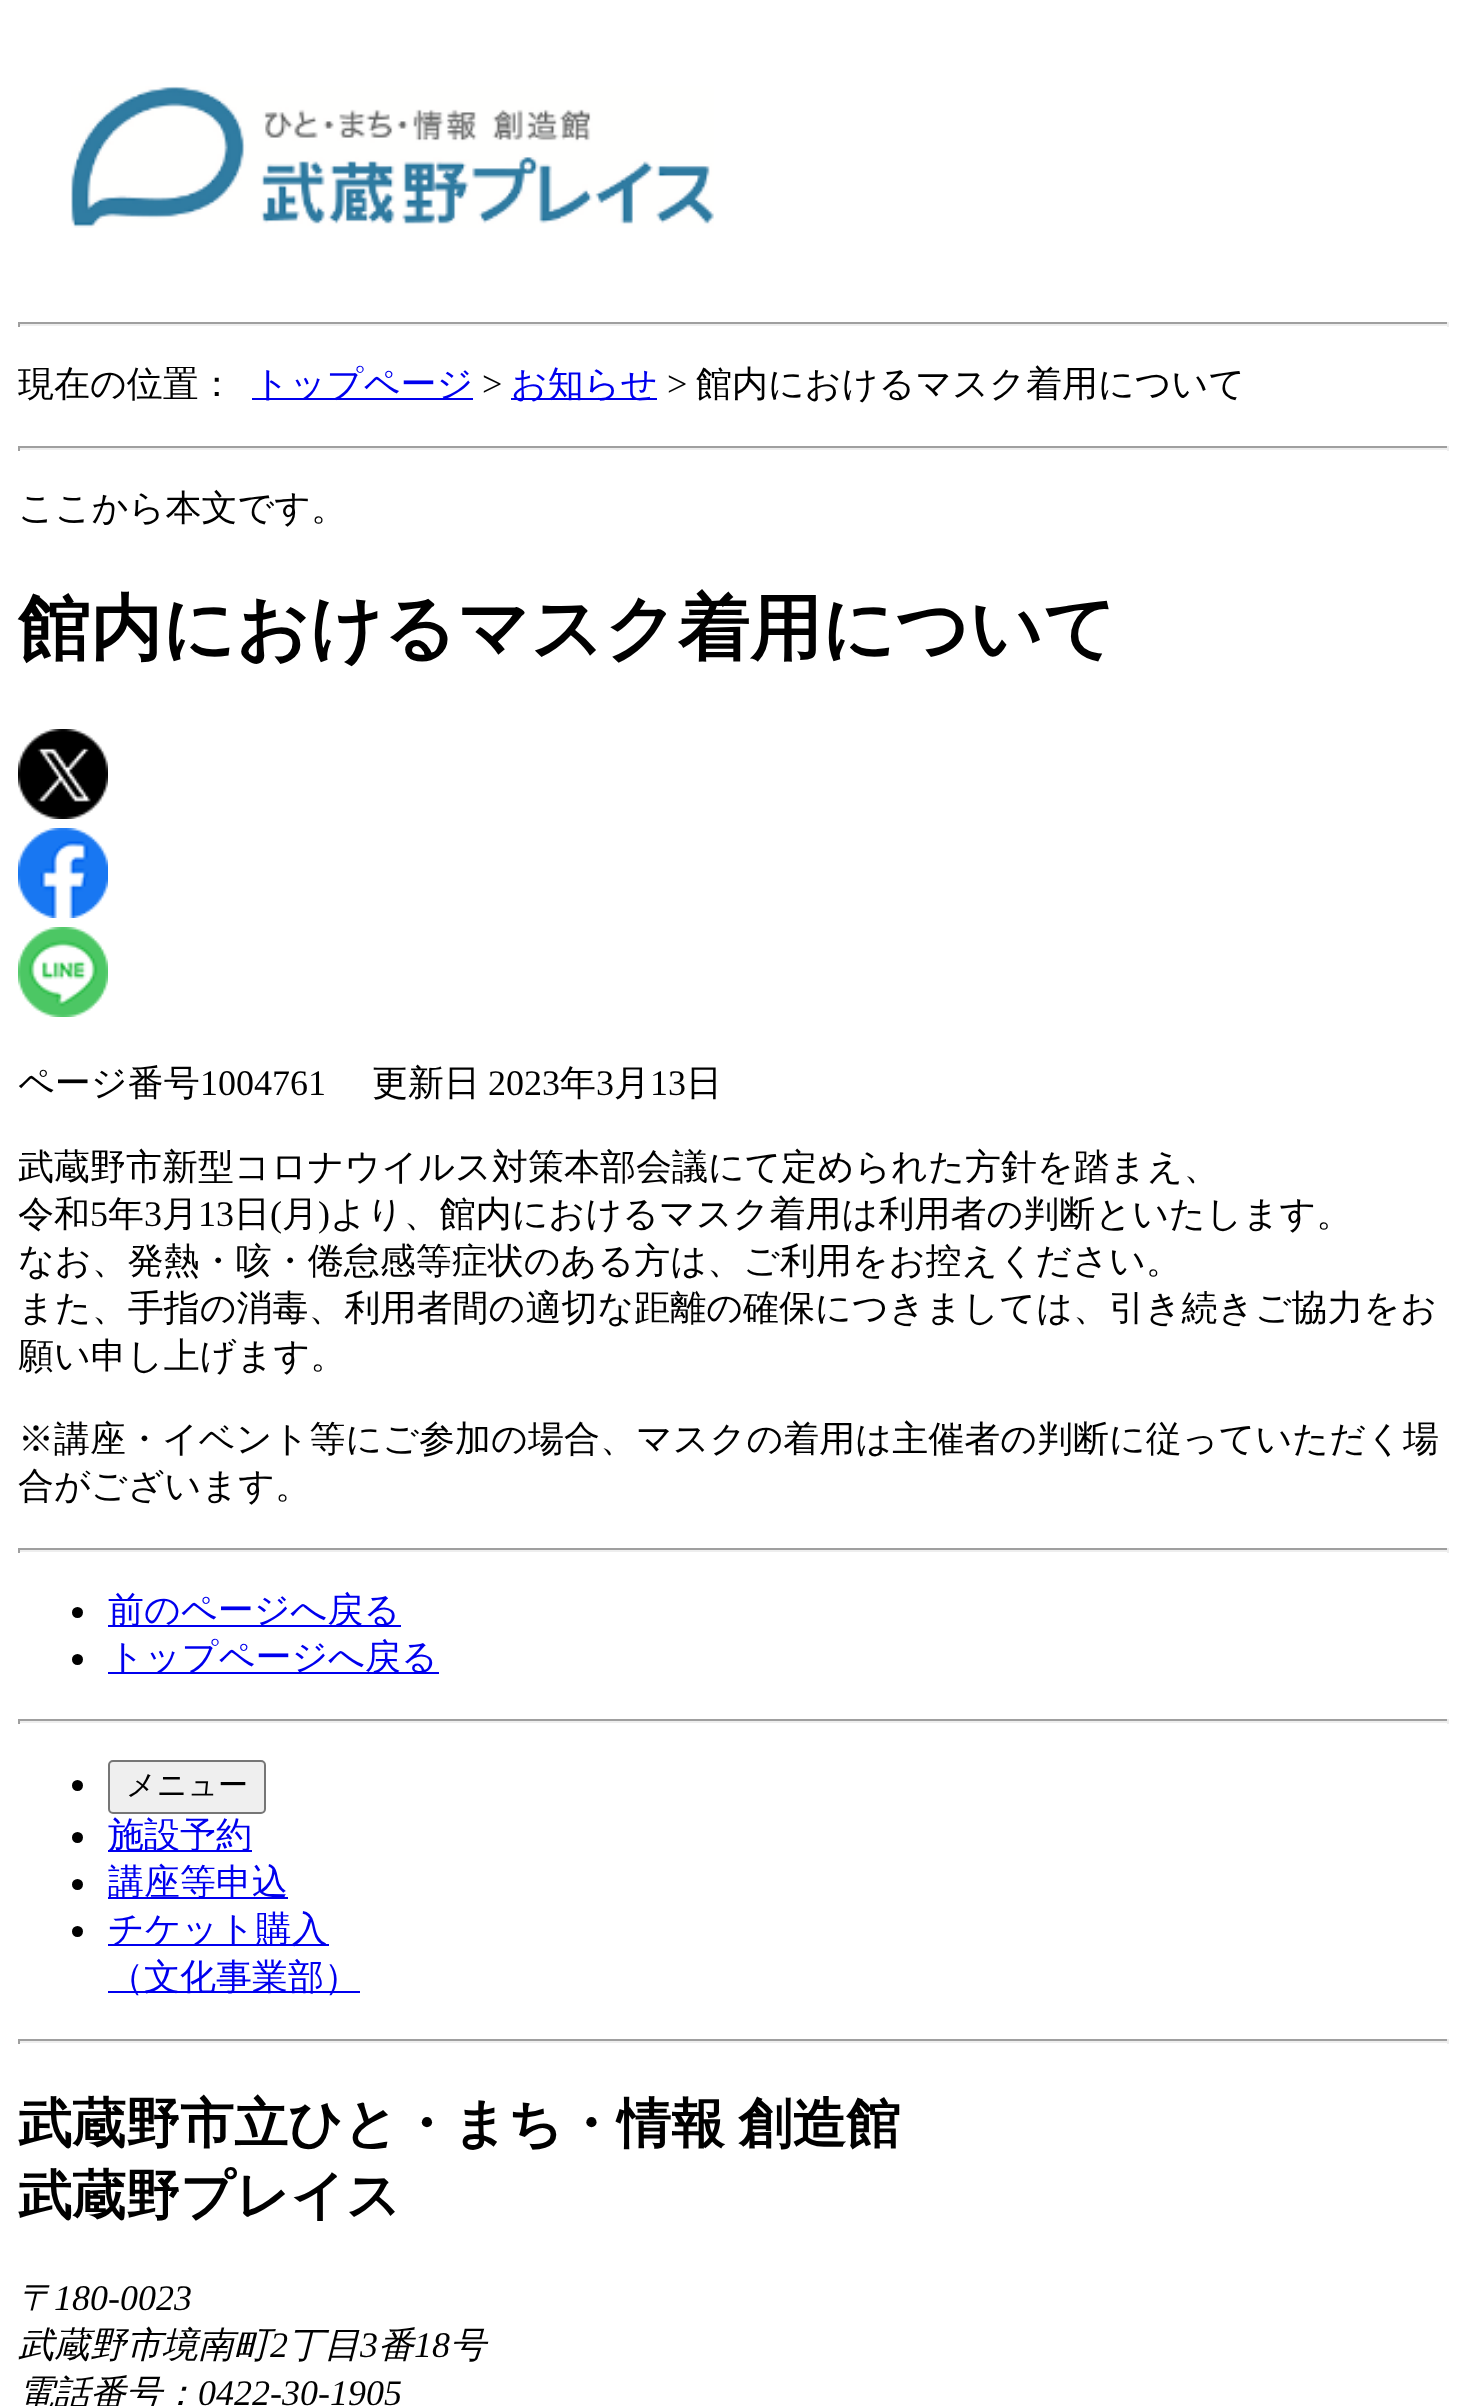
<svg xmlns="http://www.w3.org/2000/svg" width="1465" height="2406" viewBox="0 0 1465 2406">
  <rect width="100%" height="100%" fill="rgb(255,255,255)"/>
  <image x="71" y="86" width="643" height="142" href="pic1.png"/>
  <rect x="18" y="322" width="1431" height="2" fill="rgb(159,159,159)"/>
  <rect x="1447" y="322" width="2" height="5" fill="rgb(238,238,238)"/>
  <rect x="18" y="324" width="1431" height="2" fill="rgb(238,238,238)"/>
  <rect x="18" y="322" width="2" height="5" fill="rgb(159,159,159)"/>
  <text x="18" y="396" font-family="WenQuanYi Zen Hei" font-size="36" font-weight="500" fill="rgb(0,0,0)">現在の位置：</text>
  <rect x="252" y="398" width="221" height="2" fill="rgb(0,0,238)"/>
  <text x="253" y="396" font-family="WenQuanYi Zen Hei" font-size="36" font-weight="500" fill="rgb(0,0,238)">トップページ</text>
  <text x="482" y="396" font-family="Liberation Serif" font-size="36" fill="rgb(0,0,0)">&gt;</text>
  <rect x="511" y="398" width="146" height="2" fill="rgb(0,0,238)"/>
  <text x="511" y="396" font-family="WenQuanYi Zen Hei" font-size="36" font-weight="500" fill="rgb(0,0,238)">お知らせ</text>
  <text x="667" y="396" font-family="Liberation Serif" font-size="36" fill="rgb(0,0,0)">&gt;</text>
  <text x="696" y="396" font-family="WenQuanYi Zen Hei" font-size="36" font-weight="500" fill="rgb(0,0,0)">館内におけるマスク着用について</text>
  <rect x="18" y="446" width="1431" height="2" fill="rgb(159,159,159)"/>
  <rect x="1447" y="446" width="2" height="5" fill="rgb(238,238,238)"/>
  <rect x="18" y="448" width="1431" height="2" fill="rgb(238,238,238)"/>
  <rect x="18" y="446" width="2" height="5" fill="rgb(159,159,159)"/>
  <text x="18" y="520" font-family="WenQuanYi Zen Hei" font-size="36" font-weight="500" fill="rgb(0,0,0)">ここから本文です。</text>
  <text x="18" y="653" font-family="WenQuanYi Zen Hei" font-size="72" font-weight="bold" fill="rgb(0,0,0)">館内におけるマスク着用について</text>
  <image x="18" y="729" width="90" height="90" href="pic2.png"/>
  <image x="18" y="828" width="90" height="90" href="pic3.png"/>
  <image x="18" y="927" width="90" height="90" href="pic4.png"/>
  <text x="18" y="1095" font-family="WenQuanYi Zen Hei" font-size="36" font-weight="500" fill="rgb(0,0,0)">ページ番号</text>
  <text x="200" y="1095" font-family="Liberation Serif" font-size="36" fill="rgb(0,0,0)">1004761</text>
  <text x="372" y="1095" font-family="WenQuanYi Zen Hei" font-size="36" font-weight="500" fill="rgb(0,0,0)">更新日</text>
  <text x="488" y="1095" font-family="Liberation Serif" font-size="36" fill="rgb(0,0,0)">2023</text>
  <text x="560" y="1095" font-family="WenQuanYi Zen Hei" font-size="36" font-weight="500" fill="rgb(0,0,0)">年</text>
  <text x="596" y="1095" font-family="Liberation Serif" font-size="36" fill="rgb(0,0,0)">3</text>
  <text x="614" y="1095" font-family="WenQuanYi Zen Hei" font-size="36" font-weight="500" fill="rgb(0,0,0)">月</text>
  <text x="650" y="1095" font-family="Liberation Serif" font-size="36" fill="rgb(0,0,0)">13</text>
  <g font-family="WenQuanYi Zen Hei" font-size="36" font-weight="500" fill="rgb(0,0,0)">
    <text x="686" y="1095">日</text>
    <text>
      <tspan x="18" y="1179">武蔵野市新型コロナウイルス対策本部会議にて定められた方針を踏まえ、</tspan>
      <tspan x="18" y="1226">令和</tspan>
    </text>
  </g>
  <text x="90" y="1226" font-family="Liberation Serif" font-size="36" fill="rgb(0,0,0)">5</text>
  <text x="108" y="1226" font-family="WenQuanYi Zen Hei" font-size="36" font-weight="500" fill="rgb(0,0,0)">年</text>
  <text x="144" y="1226" font-family="Liberation Serif" font-size="36" fill="rgb(0,0,0)">3</text>
  <text x="162" y="1226" font-family="WenQuanYi Zen Hei" font-size="36" font-weight="500" fill="rgb(0,0,0)">月</text>
  <text x="198" y="1226" font-family="Liberation Serif" font-size="36" fill="rgb(0,0,0)">13</text>
  <text x="234" y="1226" font-family="WenQuanYi Zen Hei" font-size="36" font-weight="500" fill="rgb(0,0,0)">日</text>
  <text x="270" y="1226" font-family="Liberation Serif" font-size="36" fill="rgb(0,0,0)">(</text>
  <text x="282" y="1226" font-family="WenQuanYi Zen Hei" font-size="36" font-weight="500" fill="rgb(0,0,0)">月</text>
  <text x="318" y="1226" font-family="Liberation Serif" font-size="36" fill="rgb(0,0,0)">)</text>
  <g font-family="WenQuanYi Zen Hei" font-size="36" font-weight="500" fill="rgb(0,0,0)">
    <text x="330" y="1226">より、館内におけるマスク着用は利用者の判断といたします。</text>
    <text>
      <tspan x="18" y="1273">なお、発熱・咳・倦怠感等症状のある方は、ご利用をお控えください。</tspan>
      <tspan x="18" y="1320">また、手指の消毒、利用者間の適切な距離の確保につきましては、引き続きご協力をお</tspan>
      <tspan x="18" y="1368">願い申し上げます。</tspan>
    </text>
    <text>
      <tspan x="18" y="1451">※講座・イベント等にご参加の場合、マスクの着用は主催者の判断に従っていただく場</tspan>
      <tspan x="18" y="1498">合がございます。</tspan>
    </text>
  </g>
  <rect x="18" y="1548" width="1431" height="2" fill="rgb(159,159,159)"/>
  <rect x="1447" y="1548" width="2" height="5" fill="rgb(238,238,238)"/>
  <rect x="18" y="1550" width="1431" height="2" fill="rgb(238,238,238)"/>
  <rect x="18" y="1548" width="2" height="5" fill="rgb(159,159,159)"/>
  <circle cx="77.5" cy="1612.5" r="5.5" fill="rgb(0,0,0)"/>
  <rect x="108" y="1625" width="293" height="2" fill="rgb(0,0,238)"/>
  <text x="108" y="1622" font-family="WenQuanYi Zen Hei" font-size="36" font-weight="500" fill="rgb(0,0,238)">前のページへ戻る</text>
  <circle cx="77.5" cy="1659.5" r="5.5" fill="rgb(0,0,0)"/>
  <rect x="108" y="1672" width="331" height="2" fill="rgb(0,0,238)"/>
  <text x="108" y="1669" font-family="WenQuanYi Zen Hei" font-size="36" font-weight="500" fill="rgb(0,0,238)">トップページへ戻る</text>
  <rect x="18" y="1719" width="1431" height="2" fill="rgb(159,159,159)"/>
  <rect x="1447" y="1719" width="2" height="5" fill="rgb(238,238,238)"/>
  <rect x="18" y="1721" width="1431" height="2" fill="rgb(238,238,238)"/>
  <rect x="18" y="1719" width="2" height="5" fill="rgb(159,159,159)"/>
  <circle cx="77.5" cy="1785.5" r="5.5" fill="rgb(0,0,0)"/>
  <rect x="109" y="1761" width="156" height="52" rx="4" fill="rgb(239,239,239)" stroke="rgb(118,118,118)" stroke-width="2"/>
  <text x="126" y="1795" font-family="WenQuanYi Zen Hei" font-size="30" font-weight="500" fill="rgb(0,0,0)">メニュー</text>
  <circle cx="77.5" cy="1837.5" r="5.5" fill="rgb(0,0,0)"/>
  <rect x="108" y="1850" width="144" height="2" fill="rgb(0,0,238)"/>
  <text x="108" y="1847" font-family="WenQuanYi Zen Hei" font-size="36" font-weight="500" fill="rgb(0,0,238)">施設予約</text>
  <circle cx="77.5" cy="1884.5" r="5.5" fill="rgb(0,0,0)"/>
  <rect x="108" y="1897" width="180" height="2" fill="rgb(0,0,238)"/>
  <text x="108" y="1894" font-family="WenQuanYi Zen Hei" font-size="36" font-weight="500" fill="rgb(0,0,238)">講座等申込</text>
  <circle cx="77.5" cy="1931.5" r="5.5" fill="rgb(0,0,0)"/>
  <rect x="108" y="1944" width="221" height="2" fill="rgb(0,0,238)"/>
  <text x="108" y="1941" font-family="WenQuanYi Zen Hei" font-size="36" font-weight="500" fill="rgb(0,0,238)">チケット購入</text>
  <rect x="108" y="1991" width="252" height="2" fill="rgb(0,0,238)"/>
  <text x="108" y="1989" font-family="WenQuanYi Zen Hei" font-size="36" font-weight="500" fill="rgb(0,0,238)">（文化事業部）</text>
  <rect x="18" y="2039" width="1431" height="2" fill="rgb(159,159,159)"/>
  <rect x="1447" y="2039" width="2" height="5" fill="rgb(238,238,238)"/>
  <rect x="18" y="2041" width="1431" height="2" fill="rgb(238,238,238)"/>
  <rect x="18" y="2039" width="2" height="5" fill="rgb(159,159,159)"/>
  <g font-family="WenQuanYi Zen Hei" font-size="54" font-weight="bold" fill="rgb(0,0,0)">
    <text>
      <tspan x="18" y="2142" word-spacing="-3">武蔵野市立ひと・まち・情報 創造館</tspan>
      <tspan x="18" y="2214">武蔵野プレイス</tspan>
    </text>
  </g>
  <text x="18" y="2310" font-family="WenQuanYi Zen Hei" font-size="36" font-weight="500" font-style="italic" fill="rgb(0,0,0)">〒</text>
  <text x="54" y="2310" font-family="Liberation Serif" font-size="36" font-style="italic" fill="rgb(0,0,0)">180-0023</text>
  <text x="18" y="2357" font-family="WenQuanYi Zen Hei" font-size="36" font-weight="500" font-style="italic" fill="rgb(0,0,0)">武蔵野市境南町</text>
  <text x="270" y="2357" font-family="Liberation Serif" font-size="36" font-style="italic" fill="rgb(0,0,0)">2</text>
  <text x="288" y="2357" font-family="WenQuanYi Zen Hei" font-size="36" font-weight="500" font-style="italic" fill="rgb(0,0,0)">丁目</text>
  <text x="360" y="2357" font-family="Liberation Serif" font-size="36" font-style="italic" fill="rgb(0,0,0)">3</text>
  <text x="378" y="2357" font-family="WenQuanYi Zen Hei" font-size="36" font-weight="500" font-style="italic" fill="rgb(0,0,0)">番</text>
  <text x="414" y="2357" font-family="Liberation Serif" font-size="36" font-style="italic" fill="rgb(0,0,0)">18</text>
  <g font-family="WenQuanYi Zen Hei" font-size="36" font-weight="500" font-style="italic" fill="rgb(0,0,0)">
    <text x="450" y="2357">号</text>
    <text x="18" y="2405">電話番号：</text>
  </g>
  <text x="198" y="2405" font-family="Liberation Serif" font-size="36" font-style="italic" fill="rgb(0,0,0)">0422-30-1905</text>
</svg>
